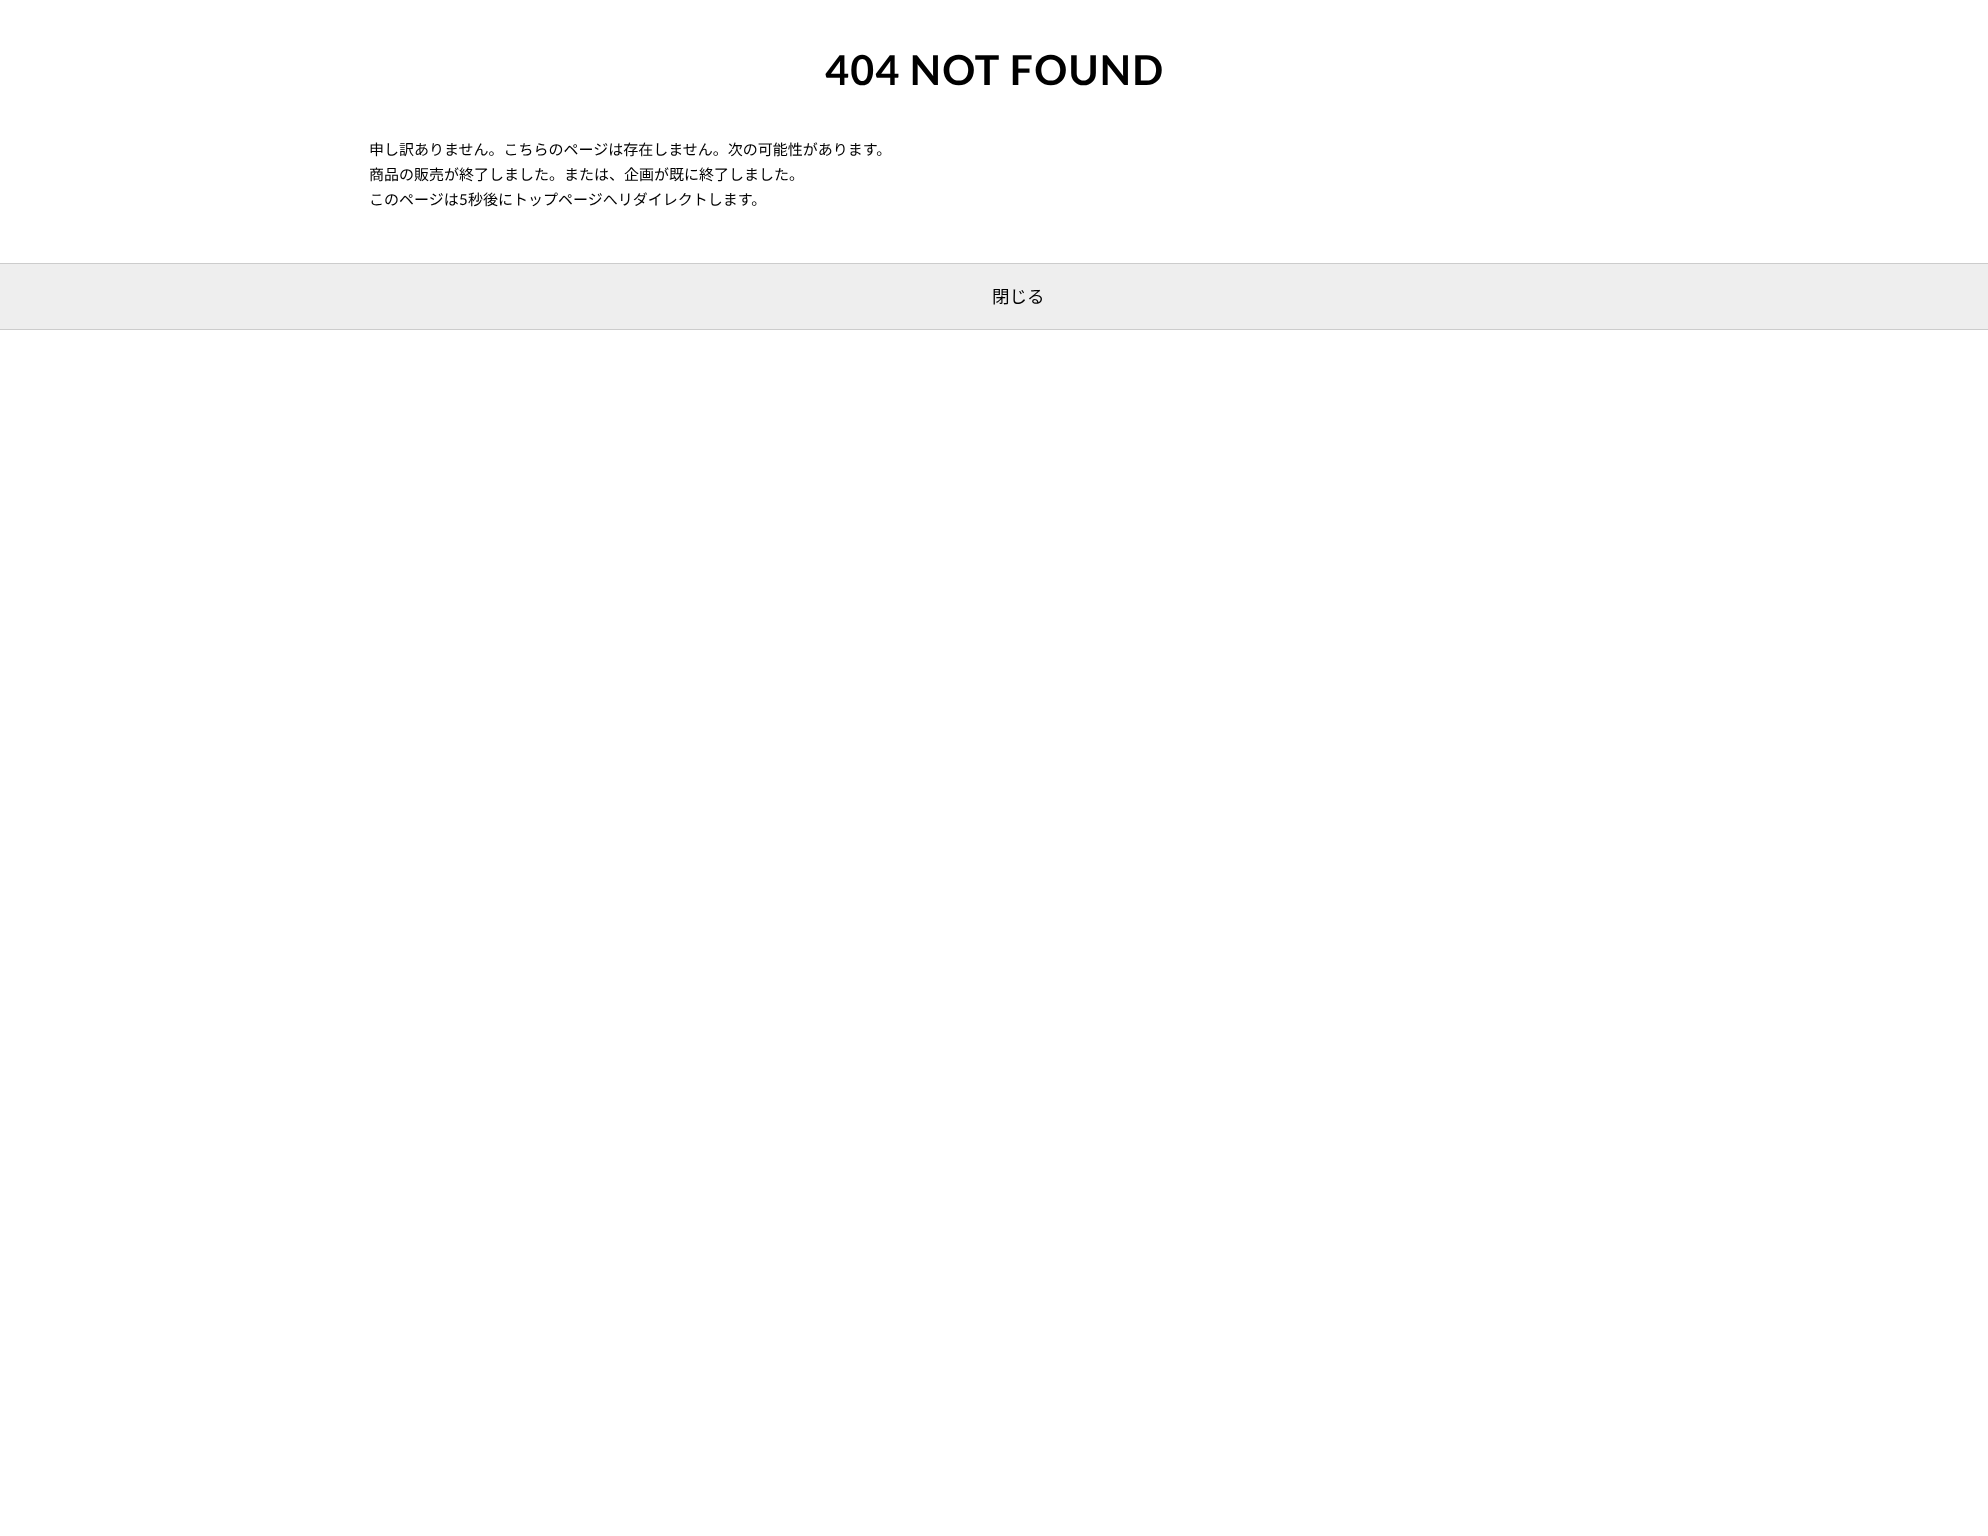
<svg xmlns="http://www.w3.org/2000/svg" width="1988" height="1536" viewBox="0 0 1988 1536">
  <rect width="100%" height="100%" fill="rgb(255,255,255)"/>
  <text x="825" y="85" font-family="Lato" font-size="41.25" font-weight="bold" letter-spacing="1.25" fill="rgb(0,0,0)">404 NOT FOUND</text>
  <g font-family="Noto Sans JP" font-size="15" font-weight="100" fill="rgb(0,0,0)">
    <text>
      <tspan x="369" y="155">申し訳ありません。こちらのページは存在しません。次の可能性があります。</tspan>
      <tspan x="369" y="180">商品の販売が終了しました。または、企画が既に終了しました。</tspan>
      <tspan x="369" y="205">このページは</tspan>
    </text>
  </g>
  <text x="459" y="205" font-family="Lato" font-size="15" fill="rgb(0,0,0)">5</text>
  <text x="468" y="205" font-family="Noto Sans JP" font-size="15" font-weight="100" fill="rgb(0,0,0)">秒後にトップページへリダイレクトします。</text>
  <rect x="0" y="264" width="1988" height="65" fill="rgb(238,238,238)"/>
  <rect x="0" y="263" width="1988" height="1" fill="rgb(204,204,204)"/>
  <rect x="0" y="329" width="1988" height="1" fill="rgb(204,204,204)"/>
  <text x="992" y="303" font-family="Noto Sans JP" font-size="17.5" font-weight="100" fill="rgb(0,0,0)">閉じる</text>
</svg>
